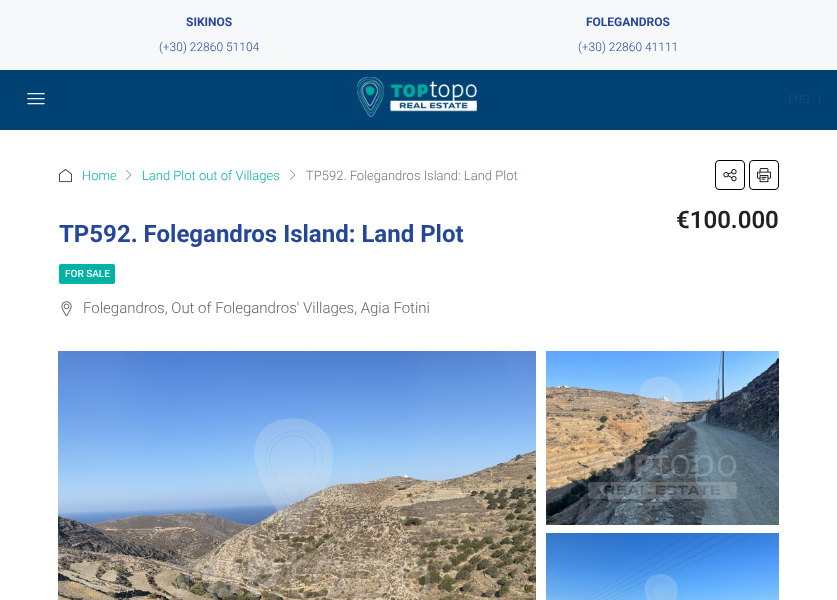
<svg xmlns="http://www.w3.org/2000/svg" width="837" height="600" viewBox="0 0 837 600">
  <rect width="100%" height="100%" fill="rgb(247,248,249)"/>
  <text x="186" y="26" font-family="Roboto" font-size="12" font-weight="bold" fill="rgb(37,71,154)">SIKINOS</text>
  <text x="159" y="51" font-family="Roboto" font-size="12" font-weight="300" fill="rgb(37,71,154)">(+30) 22860 51104</text>
  <text x="586" y="26" font-family="Roboto" font-size="12" font-weight="bold" fill="rgb(37,71,154)">FOLEGANDROS</text>
  <text x="578" y="51" font-family="Roboto" font-size="12" font-weight="300" fill="rgb(37,71,154)">(+30) 22860 41111</text>
  <rect x="0" y="70" width="837" height="60" fill="rgb(0,66,116)"/>
  <text x="788" y="103" font-family="Roboto" font-size="11" font-weight="300" fill="rgb(37,71,154)">ENG</text>
  <text x="818" y="103" font-family="Roboto" font-size="13" font-weight="300" fill="rgb(37,71,154)">|</text>
  <image x="27" y="93" width="18" height="12" href="pic1.png"/>
  <image x="357" y="77" width="120" height="40" href="pic2.png"/>
  <rect x="0" y="130" width="837" height="470" fill="rgb(255,255,255)"/>
  <image x="59" y="169" width="13" height="14" href="pic3.png"/>
  <text x="82" y="180" font-family="Roboto" font-size="13" font-weight="300" fill="rgb(0,179,163)">Home</text>
  <image x="126" y="169" width="6" height="11" href="pic4.png"/>
  <text x="142" y="180" font-family="Roboto" font-size="13" font-weight="300" fill="rgb(0,179,163)">Land Plot out of Villages</text>
  <image x="290" y="169" width="6" height="11" href="pic4.png"/>
  <text x="306" y="180" font-family="Roboto" font-size="13" font-weight="300" fill="rgb(108,117,125)">TP592. Folegandros Island: Land Plot</text>
  <rect x="715.5" y="160.5" width="29" height="29" rx="3.5" fill="none" stroke="rgb(0,0,0)"/>
  <image x="723" y="169" width="14" height="13" href="pic5.png"/>
  <rect x="749.5" y="160.5" width="29" height="29" rx="3.5" fill="none" stroke="rgb(0,0,0)"/>
  <image x="757" y="168" width="14" height="15" href="pic6.png"/>
  <text x="676" y="228" font-family="Roboto" font-size="24" font-weight="600" fill="rgb(34,34,34)">€100.000</text>
  <text x="59" y="242" font-family="Roboto" font-size="24" font-weight="bold" fill="rgb(37,71,154)">TP592. Folegandros Island: Land Plot</text>
  <rect x="59" y="264" width="56" height="20" rx="2" fill="rgb(0,179,163)"/>
  <text x="65" y="277" font-family="Roboto" font-size="10" font-weight="500" fill="rgb(255,255,255)">FOR SALE</text>
  <image x="61" y="301" width="11" height="16" href="pic7.png"/>
  <text x="83" y="313" font-family="Roboto" font-size="15" font-weight="300" fill="rgb(99,99,99)">Folegandros, Out of Folegandros' Villages, Agia Fotini</text>
  <image x="58" y="351" width="478" height="249" href="pic8.png"/>
  <image x="546" y="351" width="233" height="174" href="pic9.png"/>
  <image x="546" y="533" width="233" height="67" href="pic10.png"/>
</svg>
